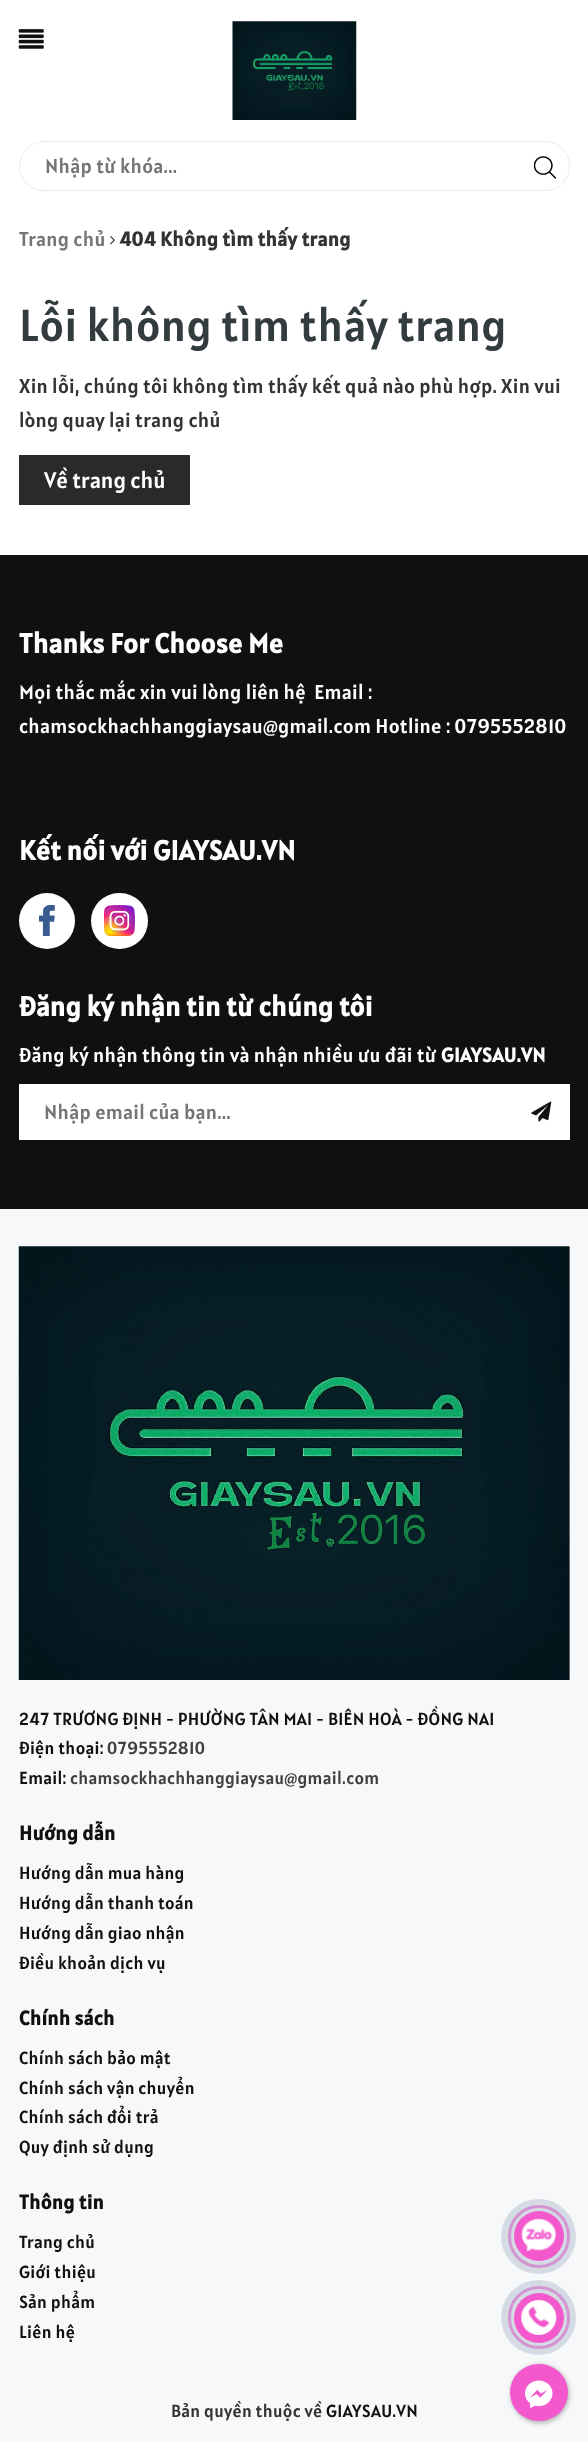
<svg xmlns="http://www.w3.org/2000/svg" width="588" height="2442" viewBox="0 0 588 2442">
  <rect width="100%" height="100%" fill="rgb(255,255,255)"/>
  <image x="18" y="29" width="26" height="20" href="pic1.png"/>
  <image x="232" y="21" width="125" height="99" href="pic2.png"/>
  <rect x="19.5" y="141.5" width="550" height="49" rx="24.5" fill="none" stroke="rgb(235,235,235)"/>
  <text x="45" y="173" font-family="Alatsi" font-size="20" letter-spacing="0.3" fill="rgb(117,117,117)">Nhập từ khóa...</text>
  <image x="534" y="156" width="22" height="23" href="pic3.png"/>
  <text x="19" y="246" font-family="Alatsi" font-size="20" letter-spacing="0.3" fill="rgb(117,117,117)">Trang chủ</text>
  <image x="110" y="236" width="5" height="9" href="pic4.png"/>
  <text x="119" y="246" font-family="Alatsi" font-size="20" font-weight="bold" letter-spacing="0.3" fill="rgb(51,51,51)">404 Không tìm thấy trang</text>
  <text x="19" y="341" font-family="Alatsi" font-size="45" letter-spacing="0.45" fill="rgb(50,60,63)">Lỗi không tìm thấy trang</text>
  <g font-family="Alatsi" font-size="20" letter-spacing="0.3" fill="rgb(51,51,51)">
    <text>
      <tspan x="19" y="393">Xin lỗi, chúng tôi không tìm thấy kết quả nào phù hợp. Xin vui</tspan>
      <tspan x="19" y="427">lòng quay lại trang chủ</tspan>
    </text>
  </g>
  <rect x="19" y="455" width="171" height="50" fill="rgb(42,42,42)"/>
  <text x="44" y="488" font-family="Alatsi" font-size="22.5" fill="rgb(255,255,255)">Về trang chủ</text>
  <rect x="0" y="555" width="588" height="654" fill="rgb(15,16,15)"/>
  <text x="19" y="653" font-family="Alatsi" font-size="27.5" font-weight="bold" letter-spacing="0.25" fill="rgb(255,255,255)">Thanks For Choose Me</text>
  <g font-family="Alatsi" font-size="20" letter-spacing="0.3" fill="rgb(255,255,255)">
    <text xml:space="preserve"><tspan x="19" y="699">Mọi thắc mắc xin vui lòng liên hệ  Email :</tspan><tspan x="19" y="733">chamsockhachhanggiaysau@gmail.com Hotline : 0795552810</tspan></text>
  </g>
  <text x="19" y="860" font-family="Alatsi" font-size="27.5" font-weight="bold" letter-spacing="0.25" fill="rgb(255,255,255)">Kết nối với GIAYSAU.VN</text>
  <circle cx="47" cy="921" r="28" fill="rgb(255,255,255)"/>
  <image x="39" y="905" width="16" height="31" href="pic5.png"/>
  <rect x="91" y="893" width="57" height="56" rx="28" fill="rgb(255,255,255)"/>
  <image x="104" y="905" width="31" height="31" href="pic6.png"/>
  <text x="19" y="1016" font-family="Alatsi" font-size="27.5" font-weight="bold" letter-spacing="0.25" fill="rgb(255,255,255)">Đăng ký nhận tin từ chúng tôi</text>
  <text x="19" y="1062" font-family="Alatsi" font-size="20" letter-spacing="0.3" fill="rgb(255,255,255)">Đăng ký nhận thông tin và nhận nhiều ưu đãi từ</text>
  <text x="441" y="1062" font-family="Alatsi" font-size="20" font-weight="bold" letter-spacing="0.3" fill="rgb(255,255,255)">GIAYSAU.VN</text>
  <rect x="19" y="1084" width="551" height="56" fill="rgb(255,255,255)"/>
  <text x="44" y="1119" font-family="Alatsi" font-size="20" letter-spacing="0.3" fill="rgb(117,117,117)">Nhập email của bạn...</text>
  <image x="531" y="1101" width="21" height="21" href="pic7.png"/>
  <rect x="0" y="1209" width="588" height="1233" fill="rgb(247,248,249)"/>
  <image x="18" y="1246" width="552" height="434" href="pic8.png"/>
  <g font-family="Alatsi" font-size="17.5" letter-spacing="0.3" fill="rgb(15,16,15)">
    <text>
      <tspan x="19" y="1725">247 TRƯƠNG ĐỊNH - PHƯỜNG TÂN MAI - BIÊN HOÀ - ĐỒNG NAI</tspan>
      <tspan x="19" y="1754">Điện thoại:</tspan>
    </text>
  </g>
  <text x="107" y="1754" font-family="Alatsi" font-size="17.5" letter-spacing="0.3" fill="rgb(64,64,64)">0795552810</text>
  <text x="19" y="1784" font-family="Alatsi" font-size="17.5" letter-spacing="0.3" fill="rgb(15,16,15)">Email:</text>
  <text x="70" y="1784" font-family="Alatsi" font-size="17.5" letter-spacing="0.3" fill="rgb(64,64,64)">chamsockhachhanggiaysau@gmail.com</text>
  <text x="19" y="1840" font-family="Alatsi" font-size="20" font-weight="bold" letter-spacing="0.25" fill="rgb(15,16,15)">Hướng dẫn</text>
  <g font-family="Alatsi" font-size="17.5" letter-spacing="0.3" fill="rgb(15,16,15)">
    <text>
      <tspan x="19" y="1879">Hướng dẫn mua hàng</tspan>
      <tspan x="19" y="1909">Hướng dẫn thanh toán</tspan>
      <tspan x="19" y="1939">Hướng dẫn giao nhận</tspan>
      <tspan x="19" y="1969">Điều khoản dịch vụ</tspan>
    </text>
  </g>
  <text x="19" y="2025" font-family="Alatsi" font-size="20" font-weight="bold" letter-spacing="0.25" fill="rgb(15,16,15)">Chính sách</text>
  <g font-family="Alatsi" font-size="17.5" letter-spacing="0.3" fill="rgb(15,16,15)">
    <text>
      <tspan x="19" y="2064">Chính sách bảo mật</tspan>
      <tspan x="19" y="2094">Chính sách vận chuyển</tspan>
      <tspan x="19" y="2123">Chính sách đổi trả</tspan>
      <tspan x="19" y="2153">Quy định sử dụng</tspan>
    </text>
  </g>
  <text x="19" y="2209" font-family="Alatsi" font-size="20" font-weight="bold" letter-spacing="0.25" fill="rgb(15,16,15)">Thông tin</text>
  <g font-family="Alatsi" font-size="17.5" letter-spacing="0.3" fill="rgb(15,16,15)">
    <text>
      <tspan x="19" y="2248">Trang chủ</tspan>
      <tspan x="19" y="2278">Giới thiệu</tspan>
      <tspan x="19" y="2308">Sản phẩm</tspan>
      <tspan x="19" y="2338">Liên hệ</tspan>
    </text>
  </g>
  <text x="171" y="2417" font-family="Alatsi" font-size="17.5" letter-spacing="0.3" fill="rgb(51,51,51)">Bản quyền thuộc về</text>
  <text x="326" y="2417" font-family="Alatsi" font-size="17.5" letter-spacing="0.3" fill="rgb(15,16,15)">GIAYSAU.VN</text>
  <rect x="509.5" y="2206.5" width="59" height="60" rx="29.5" fill="none" stroke="rgb(245,168,227)" stroke-width="3"/>
  <circle cx="538.5" cy="2236.5" r="37.5" fill="rgba(7,41,103,0.14)"/>
  <circle cx="539" cy="2236" r="25" fill="rgb(243,88,204)"/>
  <image x="521" y="2218" width="36" height="34" href="pic9.png"/>
  <rect x="509.5" y="2287.5" width="59" height="60" rx="29.5" fill="none" stroke="rgb(245,168,227)" stroke-width="3"/>
  <circle cx="538.5" cy="2317.5" r="37.5" fill="rgba(7,41,103,0.14)"/>
  <circle cx="539" cy="2318" r="25" fill="rgb(243,88,204)"/>
  <image x="521" y="2300" width="36" height="35" href="pic10.png"/>
  <rect x="511" y="2365" width="58" height="58" rx="29" fill="rgba(0,0,0,0.3)" filter="blur(2.5px)"/>
  <rect x="510" y="2364" width="58" height="57" rx="28.5" fill="rgb(243,88,204)"/>
  <image x="525" y="2380" width="28" height="29" href="pic11.png"/>
</svg>
